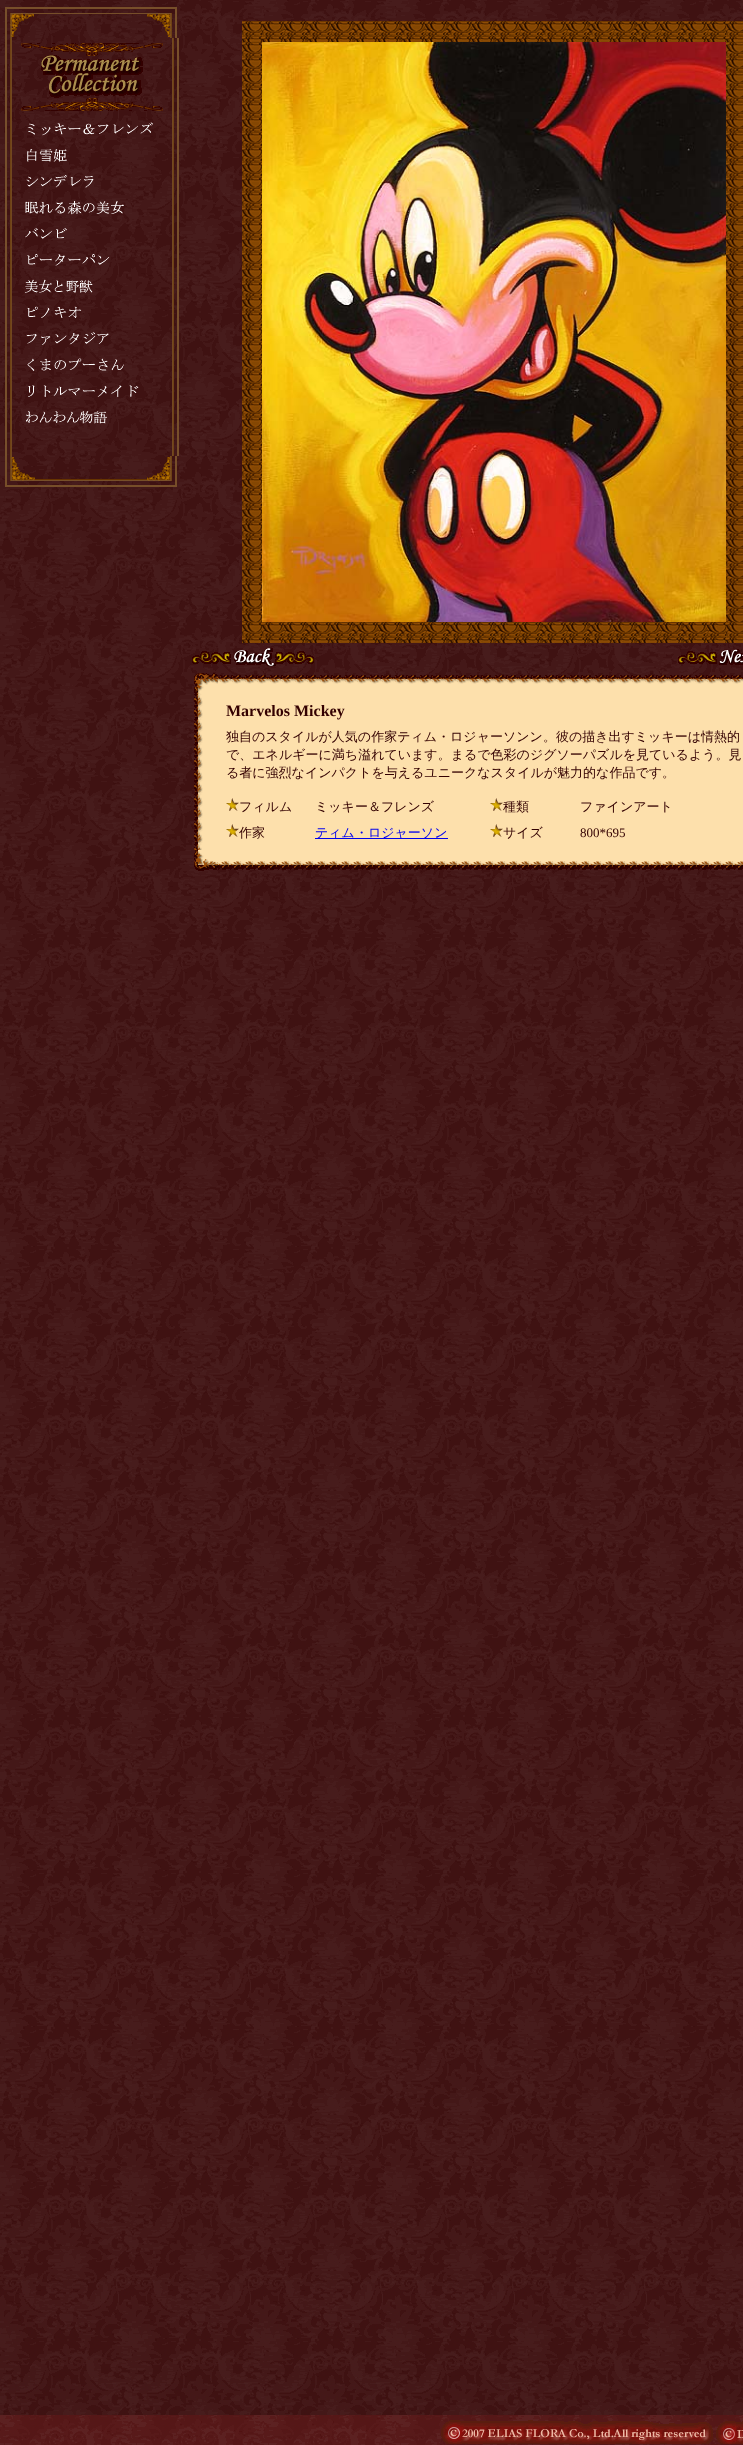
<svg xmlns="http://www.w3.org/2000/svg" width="743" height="2445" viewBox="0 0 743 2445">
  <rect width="100%" height="100%" fill="rgb(255,255,255)"/>
  <image x="0" y="0" width="743" height="2415" href="pic1.png"/>
  <image x="5" y="7" width="172" height="31" href="pic2.png"/>
  <image x="5" y="38" width="7" height="418" href="pic3.png"/>
  <image x="21" y="43" width="142" height="68" href="pic4.png"/>
  <image x="27" y="122" width="126" height="14" href="pic5.png"/>
  <image x="27" y="149" width="40" height="13" href="pic6.png"/>
  <image x="26" y="174" width="68" height="14" href="pic7.png"/>
  <image x="25" y="201" width="99" height="14" href="pic8.png"/>
  <image x="25" y="228" width="42" height="11" href="pic9.png"/>
  <image x="27" y="254" width="83" height="12" href="pic10.png"/>
  <image x="25" y="279" width="68" height="14" href="pic11.png"/>
  <image x="27" y="306" width="55" height="12" href="pic12.png"/>
  <image x="26" y="332" width="83" height="13" href="pic13.png"/>
  <image x="27" y="358" width="97" height="13" href="pic14.png"/>
  <image x="28" y="385" width="111" height="12" href="pic15.png"/>
  <image x="26" y="411" width="81" height="13" href="pic16.png"/>
  <image x="172" y="38" width="7" height="418" href="pic17.png"/>
  <image x="5" y="456" width="172" height="31" href="pic18.png"/>
  <image x="242" y="21" width="20" height="21" href="pic19.png"/>
  <image x="262" y="21" width="464" height="21" href="pic20.png"/>
  <image x="726" y="21" width="17" height="21" href="pic21.png"/>
  <image x="242" y="42" width="20" height="580" href="pic22.png"/>
  <image x="262" y="42" width="464" height="580" href="pic23.png"/>
  <image x="726" y="42" width="17" height="580" href="pic24.png"/>
  <image x="242" y="622" width="20" height="21" href="pic19.png"/>
  <image x="262" y="622" width="464" height="21" href="pic20.png"/>
  <image x="726" y="622" width="17" height="21" href="pic21.png"/>
  <image x="192" y="648" width="122" height="18" href="pic25.png"/>
  <image x="678" y="649" width="65" height="16" href="pic26.png"/>
  <image x="194" y="673" width="24" height="21" href="pic27.png"/>
  <image x="218" y="675" width="525" height="19" href="pic28.png"/>
  <image x="194" y="694" width="24" height="156" href="pic29.png"/>
  <rect x="218" y="694" width="525" height="156" fill="rgb(253,224,172)"/>
  <text x="226" y="716" font-family="Liberation Serif" font-size="16" font-weight="bold" fill="rgb(51,0,0)">Marvelos Mickey</text>
  <g font-family="WenQuanYi Zen Hei" font-size="13" font-weight="500" fill="rgb(51,0,0)">
    <text>
      <tspan x="226" y="741">独自のスタイルが人気の作家ティム・ロジャーソンン。彼の描き出すミッキーは情熱的</tspan>
      <tspan x="226" y="759">で、エネルギーに満ち溢れています。まるで色彩のジグソーパズルを見ているよう。見</tspan>
      <tspan x="226" y="777">る者に強烈なインパクトを与えるユニークなスタイルが魅力的な作品です。</tspan>
    </text>
  </g>
  <image x="226" y="798" width="13" height="13" href="pic30.png"/>
  <g font-family="WenQuanYi Zen Hei" font-size="13" font-weight="500" fill="rgb(51,0,0)">
    <text x="239" y="811">フィルム</text>
    <text x="315" y="811">ミッキー＆フレンズ</text>
  </g>
  <image x="490" y="798" width="13" height="13" href="pic30.png"/>
  <g font-family="WenQuanYi Zen Hei" font-size="13" font-weight="500" fill="rgb(51,0,0)">
    <text x="503" y="811">種類</text>
    <text x="580" y="811">ファインアート</text>
  </g>
  <image x="226" y="824" width="13" height="13" href="pic30.png"/>
  <text x="239" y="837" font-family="WenQuanYi Zen Hei" font-size="13" font-weight="500" fill="rgb(51,0,0)">作家</text>
  <rect x="315" y="838" width="133" height="1" fill="rgb(0,0,238)"/>
  <text x="315" y="837" font-family="WenQuanYi Zen Hei" font-size="13" font-weight="500" fill="rgb(0,0,238)">ティム・ロジャーソン</text>
  <image x="490" y="824" width="13" height="13" href="pic30.png"/>
  <text x="503" y="837" font-family="WenQuanYi Zen Hei" font-size="13" font-weight="500" fill="rgb(51,0,0)">サイズ</text>
  <text x="580" y="837" font-family="Liberation Serif" font-size="13" fill="rgb(51,0,0)">800*695</text>
  <image x="194" y="850" width="24" height="21" href="pic31.png"/>
  <image x="218" y="850" width="525" height="20" href="pic32.png"/>
  <image x="0" y="2415" width="743" height="30" href="pic33.png"/>
  <image x="441" y="2420" width="277" height="24" href="pic34.png"/>
  <image x="718" y="2421" width="25" height="23" href="pic35.png"/>
</svg>
